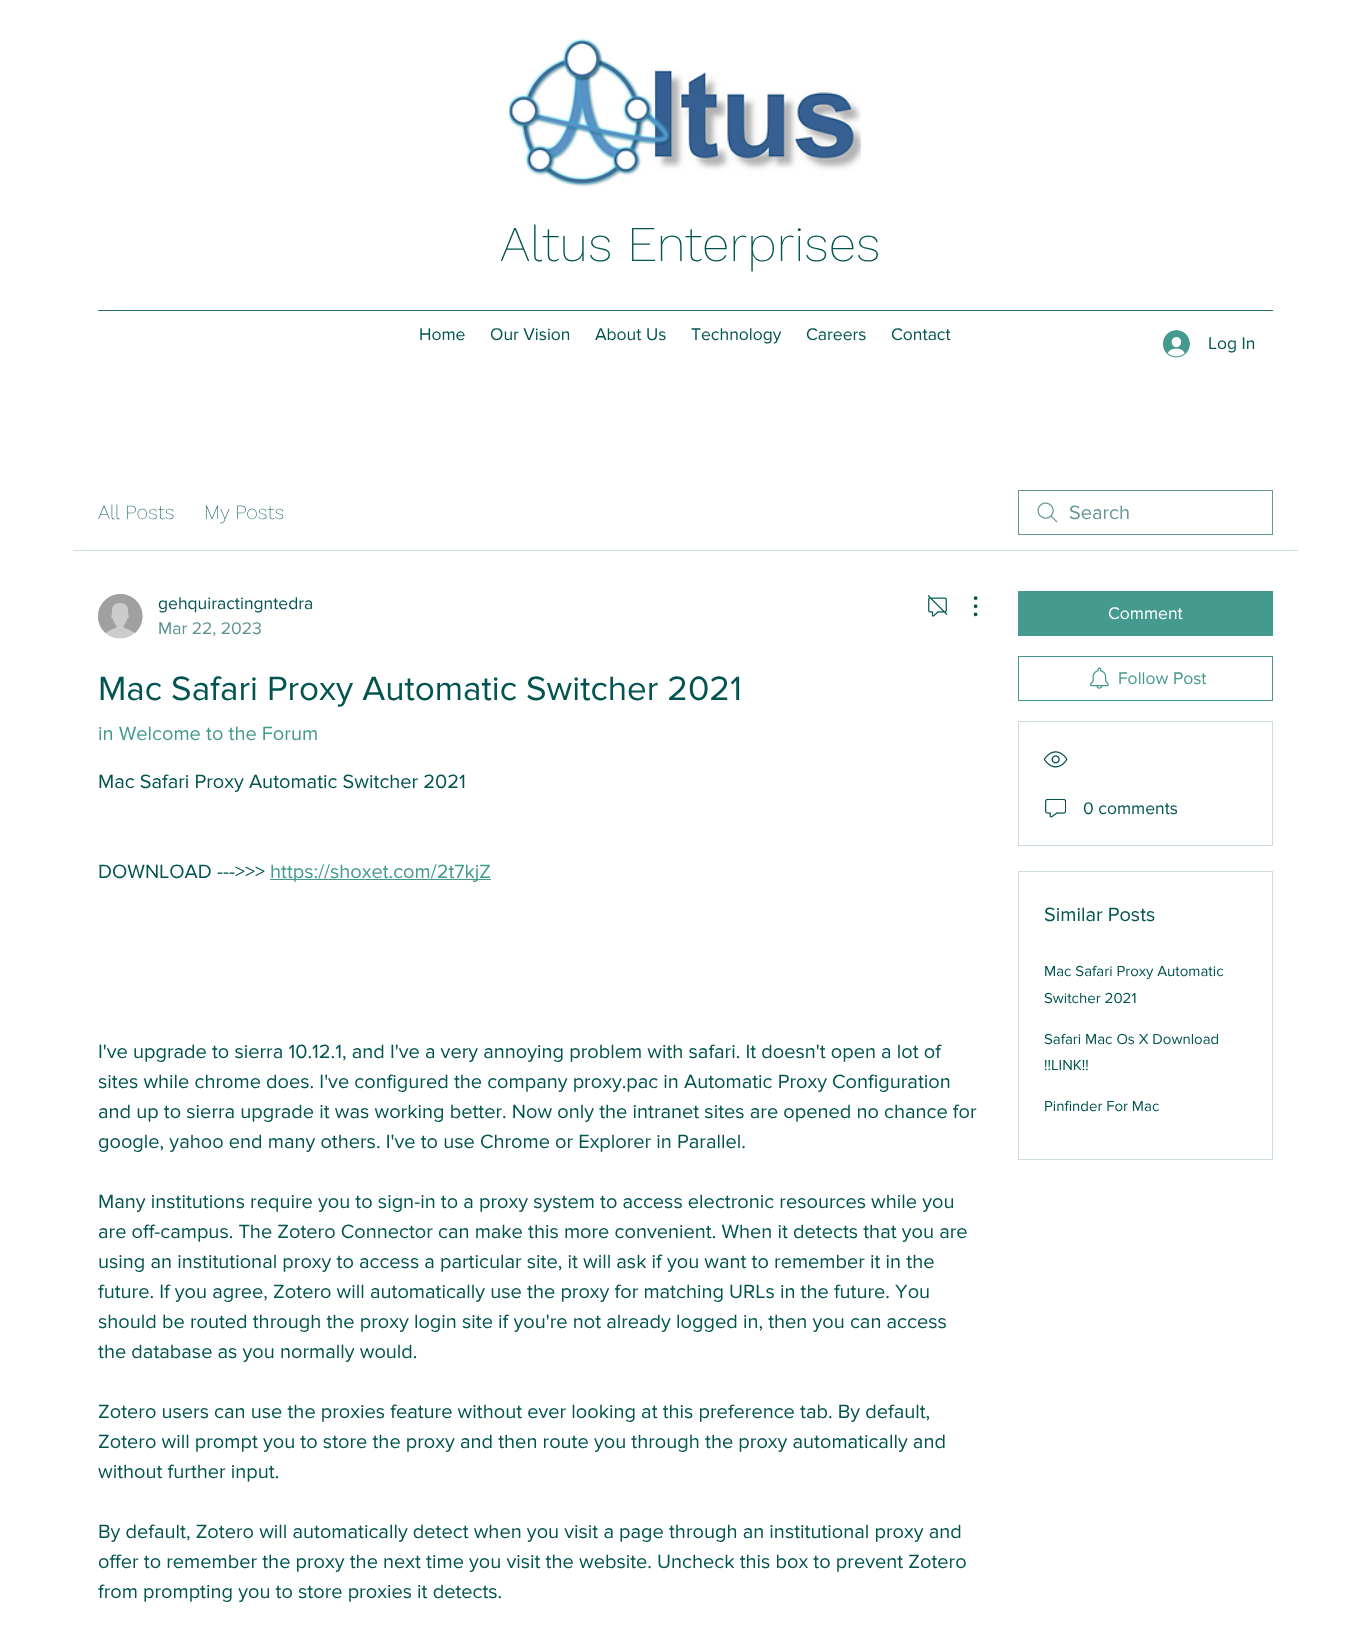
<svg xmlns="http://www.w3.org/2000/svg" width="1369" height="1638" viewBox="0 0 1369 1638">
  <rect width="100%" height="100%" fill="rgb(255,255,255)"/>
  <image x="508" y="38" width="353" height="149" href="pic1.png"/>
  <text x="500" y="261" font-family="Work Sans" font-size="50" font-weight="200" fill="rgb(1,84,80)">Altus Enterprises</text>
  <rect x="98" y="310" width="1175" height="1" fill="rgb(39,110,106)"/>
  <g font-family="'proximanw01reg'" font-size="17.5" fill="rgb(1,84,80)">
    <text x="419" y="340">Home</text>
    <text x="490" y="340">Our Vision</text>
    <text x="595" y="340">About Us</text>
    <text x="691" y="340">Technology</text>
    <text x="806" y="340">Careers</text>
    <text x="891" y="340">Contact</text>
  </g>
  <image x="1163" y="330" width="27" height="28" href="pic2.png"/>
  <text x="1208" y="349" font-family="'proximanw01reg'" font-size="17.5" fill="rgb(1,84,80)">Log In</text>
  <rect x="73" y="550" width="1225" height="1" fill="rgb(204,221,220)"/>
  <g font-family="Work Sans" font-size="20" font-weight="200" fill="rgb(1,84,80)">
    <text x="98" y="519">All Posts</text>
    <text x="204" y="519">My Posts</text>
  </g>
  <image x="1037" y="502" width="21" height="21" href="pic3.png"/>
  <rect x="1018.5" y="490.5" width="254" height="44" fill="none" stroke="rgb(103,152,150)"/>
  <text x="1069" y="519" font-family="'proximanw01reg'" font-size="20" fill="rgb(103,152,150)">Search</text>
  <image x="98" y="594" width="45" height="45" href="pic4.png"/>
  <text x="158" y="609" font-family="'proximanw01reg'" font-size="17.5" fill="rgb(1,84,80)">gehquiractingntedra</text>
  <text x="158" y="634" font-family="'proximanw01reg'" font-size="17.5" fill="rgb(92,146,143)">Mar 22, 2023</text>
  <image x="928" y="595" width="20" height="22" href="pic5.png"/>
  <image x="973" y="596" width="5" height="21" href="pic6.png"/>
  <text x="98" y="700" font-family="'proximanw01reg'" font-size="35" fill="rgb(1,84,80)">Mac Safari Proxy Automatic Switcher 2021</text>
  <text x="98" y="740" font-family="'proximanw01reg'" font-size="20" fill="rgb(69,154,142)">in Welcome to the Forum</text>
  <g font-family="'proximanw01reg'" font-size="20" fill="rgb(1,84,80)">
    <text x="98" y="788">Mac Safari Proxy Automatic Switcher 2021</text>
    <text x="98" y="878">DOWNLOAD ---&gt;&gt;&gt;</text>
  </g>
  <rect x="270" y="879" width="221" height="1" fill="rgb(69,154,142)"/>
  <text x="270" y="878" font-family="'proximanw01reg'" font-size="20" fill="rgb(69,154,142)">https://shoxet.com/2t7kjZ</text>
  <g font-family="'proximanw01reg'" font-size="20" fill="rgb(1,84,80)">
    <text>
      <tspan x="98" y="1058">I've upgrade to sierra 10.12.1, and I've a very annoying problem with safari. It doesn't open a lot of</tspan>
      <tspan x="98" y="1088">sites while chrome does. I've configured the company proxy.pac in Automatic Proxy Configuration</tspan>
      <tspan x="98" y="1118">and up to sierra upgrade it was working better. Now only the intranet sites are opened no chance for</tspan>
      <tspan x="98" y="1148">google, yahoo end many others. I've to use Chrome or Explorer in Parallel.</tspan>
    </text>
    <text>
      <tspan x="98" y="1208">Many institutions require you to sign-in to a proxy system to access electronic resources while you</tspan>
      <tspan x="98" y="1238">are off-campus. The Zotero Connector can make this more convenient. When it detects that you are</tspan>
      <tspan x="98" y="1268">using an institutional proxy to access a particular site, it will ask if you want to remember it in the</tspan>
      <tspan x="98" y="1298">future. If you agree, Zotero will automatically use the proxy for matching URLs in the future. You</tspan>
      <tspan x="98" y="1328">should be routed through the proxy login site if you're not already logged in, then you can access</tspan>
      <tspan x="98" y="1358">the database as you normally would.</tspan>
    </text>
    <text>
      <tspan x="98" y="1418">Zotero users can use the proxies feature without ever looking at this preference tab. By default,</tspan>
      <tspan x="98" y="1448">Zotero will prompt you to store the proxy and then route you through the proxy automatically and</tspan>
      <tspan x="98" y="1478">without further input.</tspan>
    </text>
    <text>
      <tspan x="98" y="1538">By default, Zotero will automatically detect when you visit a page through an institutional proxy and</tspan>
      <tspan x="98" y="1568">offer to remember the proxy the next time you visit the website. Uncheck this box to prevent Zotero</tspan>
      <tspan x="98" y="1598">from prompting you to store proxies it detects.</tspan>
    </text>
  </g>
  <rect x="1018" y="591" width="255" height="45" fill="rgb(69,154,142)"/>
  <text x="1108" y="619" font-family="'proximanw01reg'" font-size="17.5" fill="rgb(255,255,255)">Comment</text>
  <rect x="1018.5" y="656.5" width="254" height="44" fill="none" stroke="rgb(69,154,142)"/>
  <image x="1090" y="667" width="19" height="22" href="pic7.png"/>
  <text x="1118" y="684" font-family="'proximanw01reg'" font-size="17.5" fill="rgb(69,154,142)">Follow Post</text>
  <rect x="1018.5" y="721.5" width="254" height="124" fill="none" stroke="rgb(204,221,220)"/>
  <image x="1043" y="751" width="25" height="17" href="pic8.png"/>
  <image x="1045" y="799" width="21" height="19" href="pic9.png"/>
  <text x="1083" y="814" font-family="'proximanw01reg'" font-size="17.5" fill="rgb(1,84,80)">0 comments</text>
  <rect x="1018.5" y="871.5" width="254" height="288" fill="none" stroke="rgb(204,221,220)"/>
  <text x="1044" y="921" font-family="'proximanw01reg'" font-size="20" fill="rgb(1,84,80)">Similar Posts</text>
  <g font-family="'proximanw01reg'" font-size="15" fill="rgb(1,84,80)">
    <text>
      <tspan x="1044" y="976">Mac Safari Proxy Automatic</tspan>
      <tspan x="1044" y="1003">Switcher 2021</tspan>
    </text>
    <text>
      <tspan x="1044" y="1044">Safari Mac Os X Download</tspan>
      <tspan x="1044" y="1070">!!LINK!!</tspan>
    </text>
    <text x="1044" y="1111">Pinfinder For Mac</text>
  </g>
</svg>
